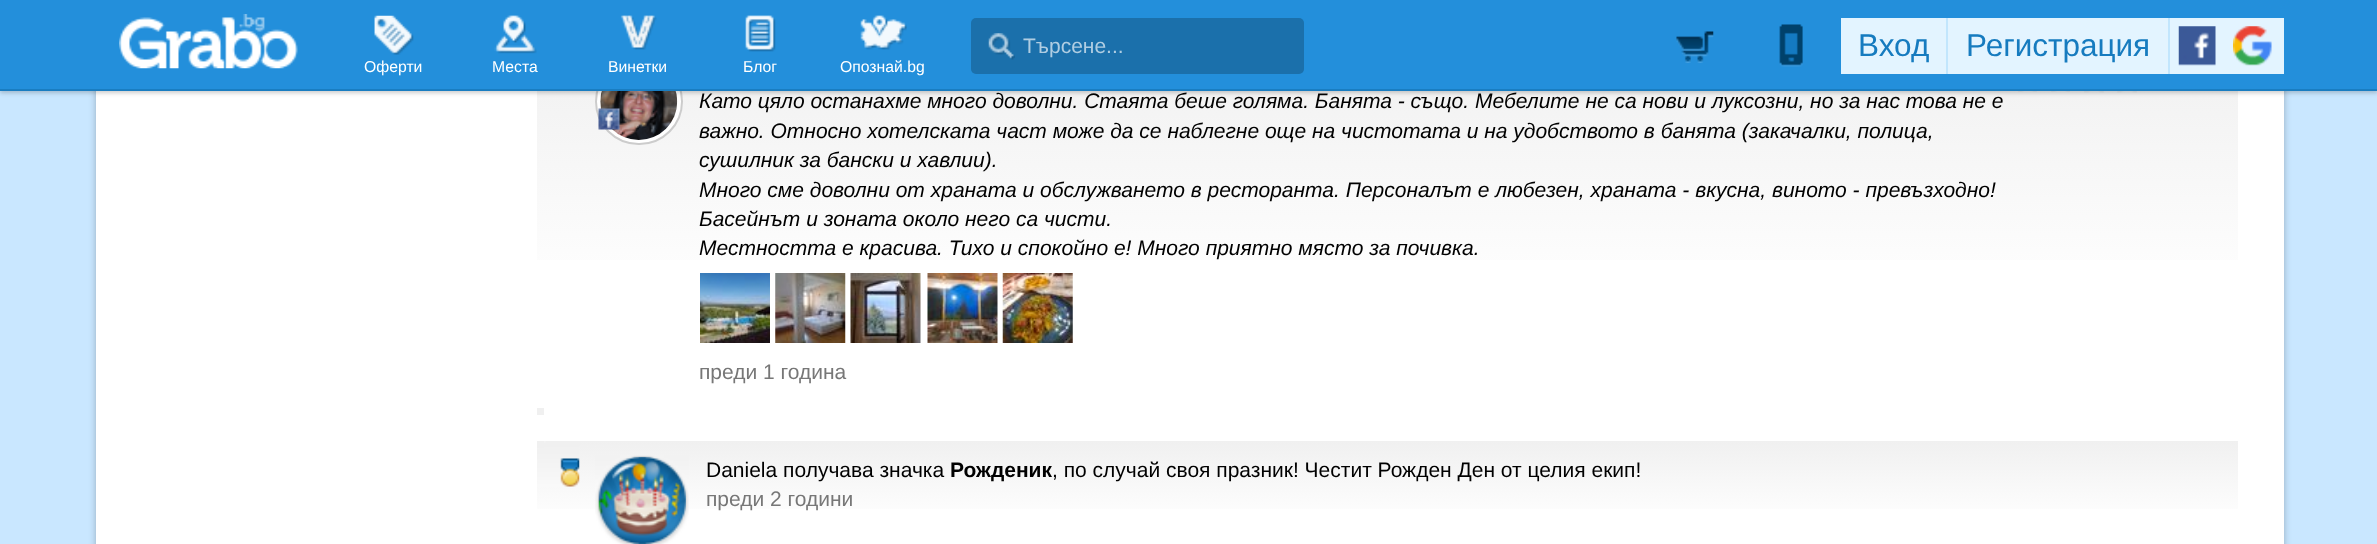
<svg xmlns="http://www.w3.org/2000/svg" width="2377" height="544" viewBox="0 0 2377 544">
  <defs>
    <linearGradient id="g1" gradientUnits="userSpaceOnUse" x1="1388" y1="44" x2="1388" y2="436"><stop offset="0" stop-color="rgb(240,240,240)"/><stop offset="0.66" stop-color="rgb(255,255,255)"/></linearGradient>
    <linearGradient id="g2" gradientUnits="userSpaceOnUse" x1="1388" y1="441" x2="1388" y2="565"><stop offset="0" stop-color="rgb(240,240,240)"/><stop offset="0.66" stop-color="rgb(255,255,255)"/></linearGradient>
  </defs>
  <rect width="100%" height="100%" fill="rgb(201,231,255)"/>
  <rect x="96" y="-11" width="2188" height="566" fill="rgba(0,0,0,0.25)" filter="blur(3.5px)"/>
  <rect x="96" y="91" width="2188" height="453" fill="rgb(255,255,255)"/>
  <rect x="537" y="91" width="1701" height="169" fill="url(#g1)"/>
  <rect x="596" y="59" width="86" height="85" rx="42.5" fill="rgb(255,255,255)" stroke="rgb(204,204,204)" stroke-width="2"/>
  <image x="600" y="91" width="78" height="49" href="pic12.png"/>
  <image x="2018" y="91" width="19" height="1" href="pic19.png"/>
  <image x="2051" y="91" width="19" height="1" href="pic20.png"/>
  <image x="2084" y="91" width="20" height="2" href="pic21.png"/>
  <image x="2117" y="91" width="20" height="2" href="pic22.png"/>
  <rect x="0" y="2" width="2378" height="91" fill="rgba(0,0,0,0.2)" filter="blur(2px)"/>
  <rect x="0" y="0" width="2377" height="89" fill="rgb(35,143,219)"/>
  <rect x="0" y="89" width="2377" height="2" fill="rgb(25,125,193)"/>
  <image x="119" y="14" width="179" height="55" href="pic1.png"/>
  <rect x="971" y="18" width="333" height="56" rx="5" fill="rgb(27,112,171)"/>
  <image x="988" y="33" width="27" height="27" href="pic2.png"/>
  <text x="1023" y="53" font-family="Liberation Sans" font-size="21" fill="rgb(175,205,226)">Търсене...</text>
  <image x="374" y="15" width="40" height="40" href="pic3.png"/>
  <text x="364" y="72" font-family="Liberation Sans" font-size="15.75" fill="rgb(255,255,255)">Оферти</text>
  <image x="494" y="15" width="43" height="39" href="pic4.png"/>
  <text x="492" y="72" font-family="Liberation Sans" font-size="15.75" fill="rgb(255,255,255)">Места</text>
  <image x="620" y="15" width="37" height="35" href="pic5.png"/>
  <text x="608" y="72" font-family="Liberation Sans" font-size="15.75" fill="rgb(255,255,255)">Винетки</text>
  <image x="745" y="15" width="31" height="37" href="pic6.png"/>
  <text x="743" y="72" font-family="Liberation Sans" font-size="15.75" fill="rgb(255,255,255)">Блог</text>
  <image x="860" y="15" width="47" height="35" href="pic7.png"/>
  <text x="840" y="72" font-family="Liberation Sans" font-size="15.75" fill="rgb(255,255,255)">Опознай.bg</text>
  <image x="1676" y="31" width="38" height="32" href="pic8.png"/>
  <image x="1779" y="24" width="24" height="43" href="pic9.png"/>
  <rect x="1946" y="18" width="2" height="56" fill="rgb(194,230,253)"/>
  <rect x="2168" y="18" width="2" height="56" fill="rgb(194,230,253)"/>
  <rect x="2170" y="18" width="114" height="56" fill="rgb(227,244,255)"/>
  <image x="2233" y="26" width="39" height="40" href="pic10.png"/>
  <rect x="1841" y="18" width="105" height="56" fill="rgb(227,244,255)"/>
  <text x="1858" y="56" font-family="Liberation Sans" font-size="31.5" fill="rgb(22,123,191)">Вход</text>
  <rect x="1948" y="18" width="220" height="56" fill="rgb(227,244,255)"/>
  <text x="1966" y="56" font-family="Liberation Sans" font-size="31.5" fill="rgb(22,123,191)">Регистрация</text>
  <image x="2178" y="26" width="38" height="40" href="pic11.png"/>
  <image x="598" y="108" width="22" height="22" href="pic13.png"/>
  <g font-family="Liberation Sans" font-size="21" font-style="italic" fill="rgb(0,0,0)">
    <text>
      <tspan x="699" y="108">Като цяло останахме много доволни. Стаята беше голяма. Банята - също. Мебелите не са нови и луксозни, но за нас това не е</tspan>
      <tspan x="699" y="138">важно. Относно хотелската част може да се наблегне още на чистотата и на удобството в банята (закачалки, полица,</tspan>
      <tspan x="699" y="167">сушилник за бански и хавлии).</tspan>
      <tspan x="699" y="197">Много сме доволни от храната и обслужването в ресторанта. Персоналът е любезен, храната - вкусна, виното - превъзходно!</tspan>
      <tspan x="699" y="226">Басейнът и зоната около него са чисти.</tspan>
      <tspan x="699" y="255">Местността е красива. Тихо и спокойно е! Много приятно място за почивка.</tspan>
    </text>
  </g>
  <image x="700" y="273" width="70" height="70" href="pic14.png"/>
  <image x="775" y="273" width="71" height="70" href="pic15.png"/>
  <image x="850" y="273" width="71" height="70" href="pic16.png"/>
  <image x="927" y="273" width="71" height="70" href="pic17.png"/>
  <image x="1002" y="273" width="71" height="70" href="pic18.png"/>
  <text x="699" y="379" font-family="Liberation Sans" font-size="21" fill="rgb(119,119,119)">преди 1 година</text>
  <rect x="537" y="408" width="7" height="7" fill="rgb(240,240,240)"/>
  <rect x="537" y="441" width="1701" height="68" fill="url(#g2)"/>
  <image x="537" y="441" width="43" height="46" href="pic23.png"/>
  <rect x="537" y="441" width="7" height="7" fill="rgb(240,240,240)"/>
  <image x="598" y="456" width="88" height="88" href="pic25.png"/>
  <image x="595" y="455" width="94" height="89" href="pic24.png"/>
  <text x="706" y="477" font-family="Liberation Sans" font-size="21" fill="rgb(0,0,0)">Daniela получава значка</text>
  <text x="950" y="477" font-family="Liberation Sans" font-size="21" font-weight="bold" fill="rgb(0,0,0)">Рожденик</text>
  <text x="1052" y="477" font-family="Liberation Sans" font-size="21" fill="rgb(0,0,0)">, по случай своя празник! Честит Рожден Ден от целия екип!</text>
  <text x="706" y="506" font-family="Liberation Sans" font-size="21" fill="rgb(119,119,119)">преди 2 години</text>
</svg>
